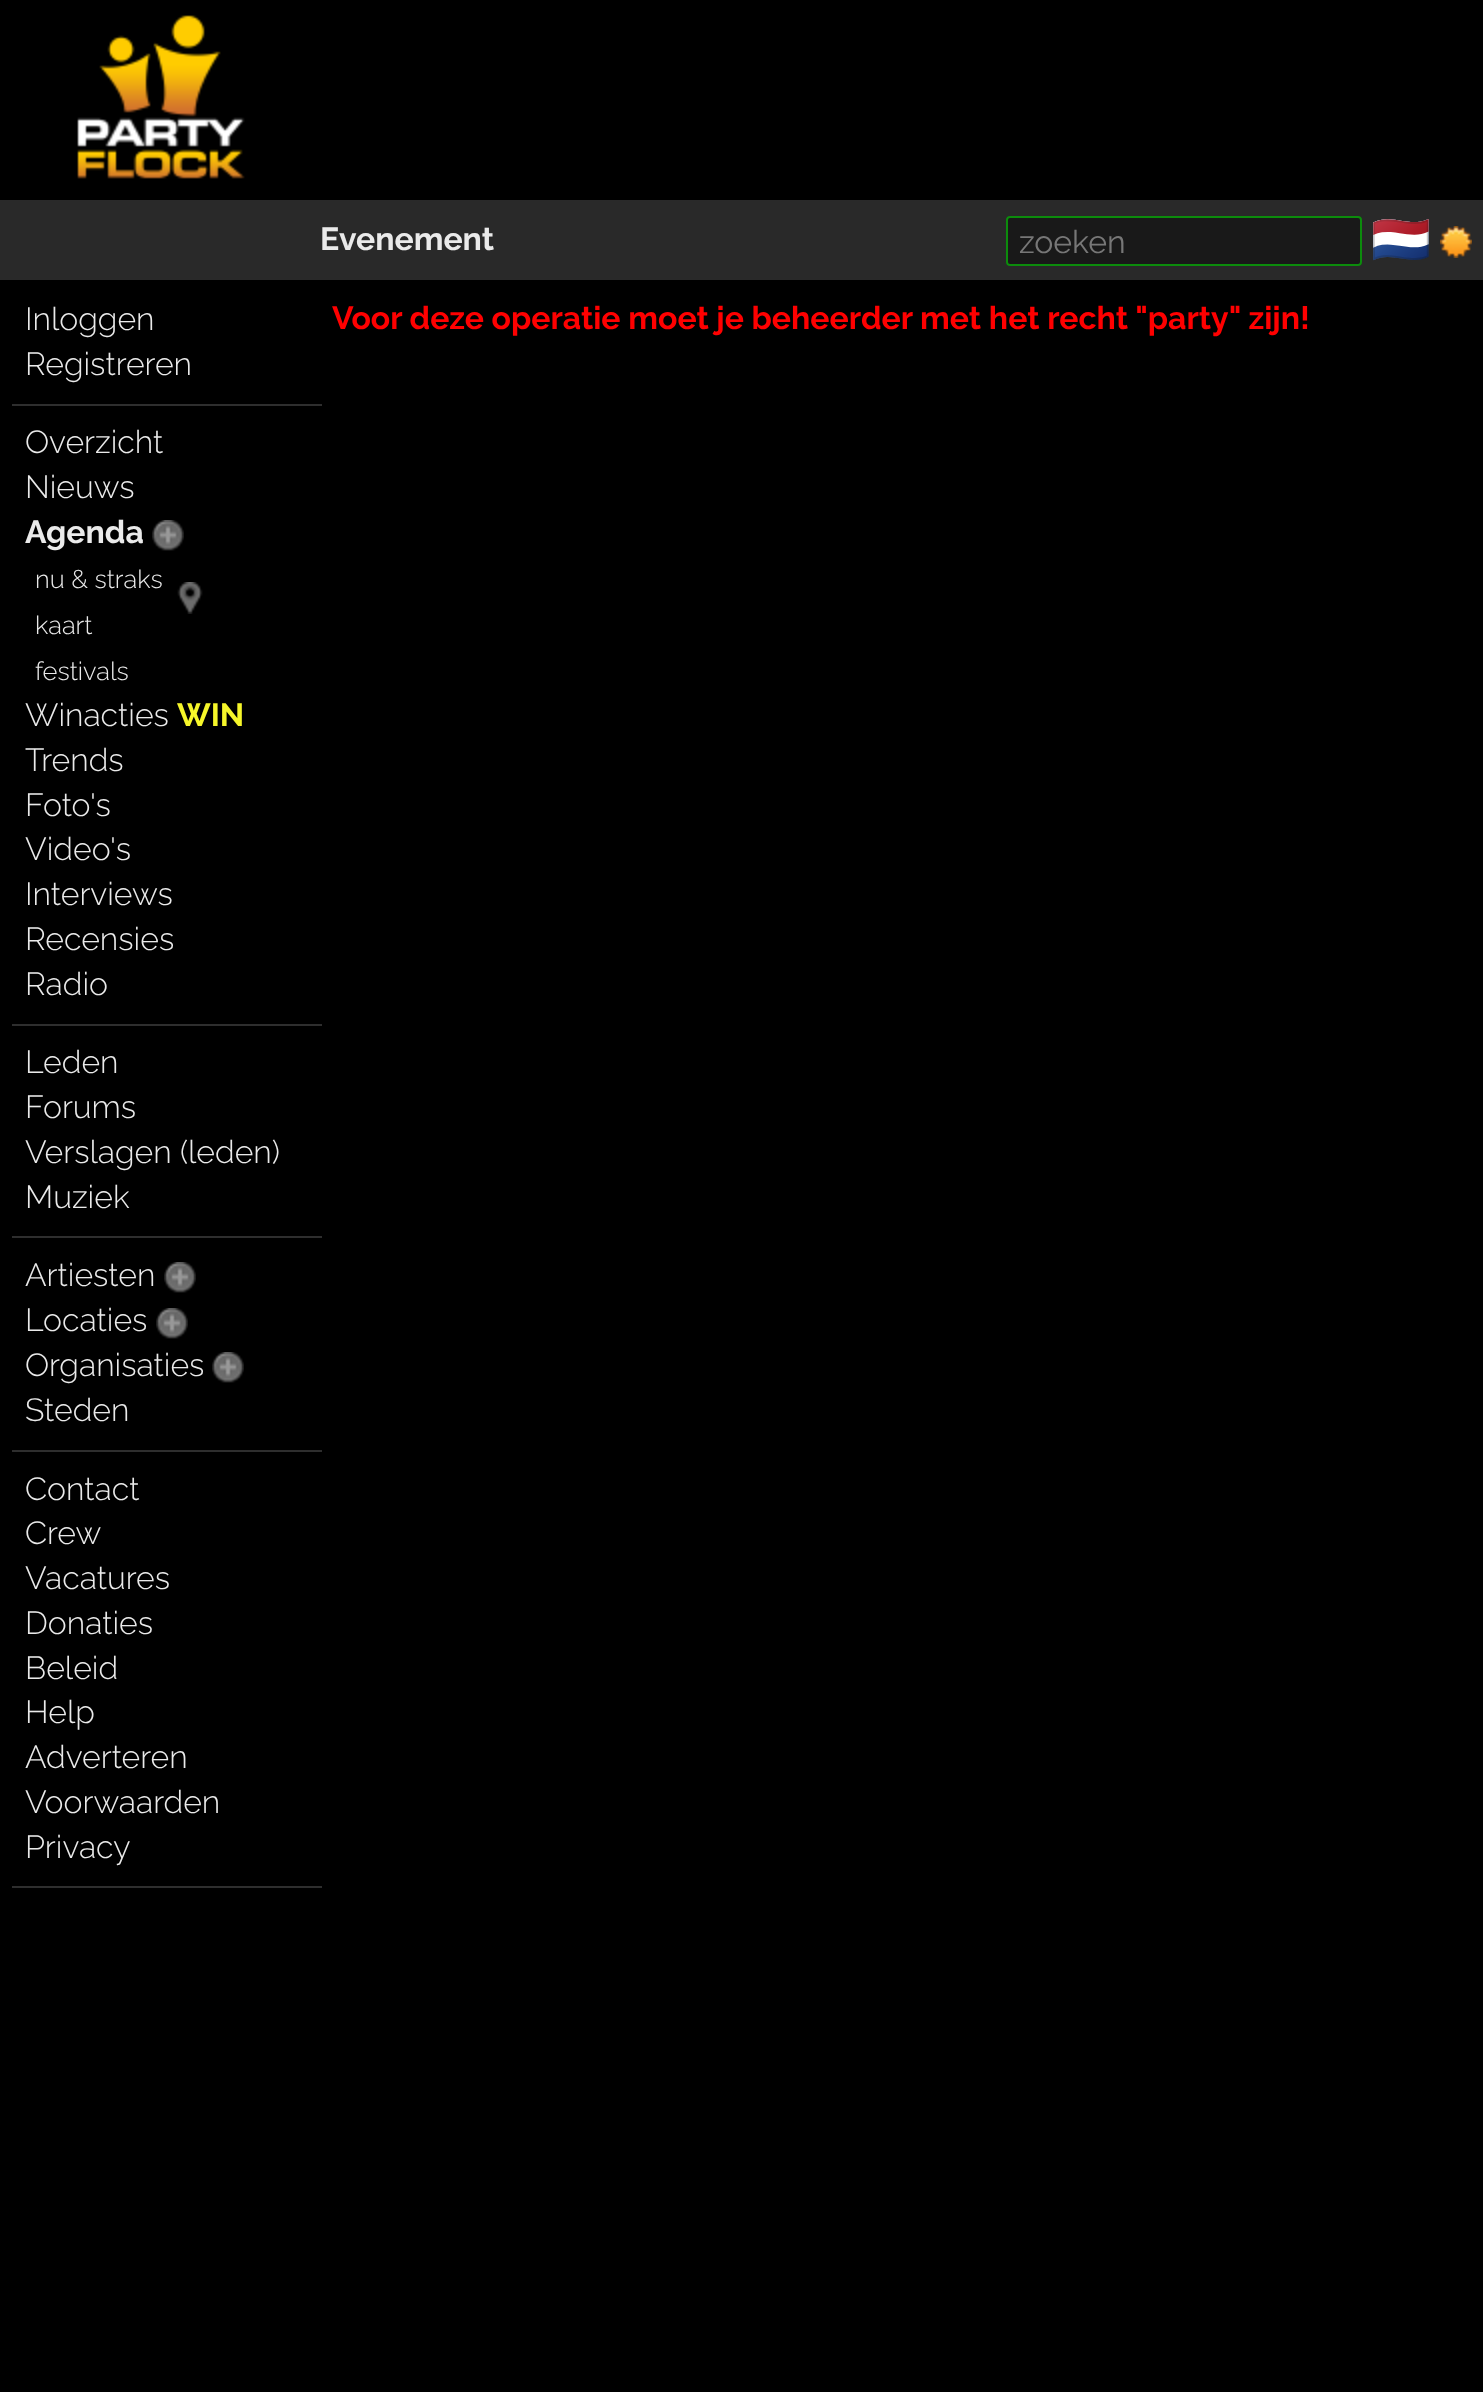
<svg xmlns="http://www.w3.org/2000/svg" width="1483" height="2392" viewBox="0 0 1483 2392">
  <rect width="100%" height="100%" fill="rgb(0,0,0)"/>
  <image x="77" y="15" width="168" height="164" href="pic1.png"/>
  <rect x="0" y="200" width="1483" height="80" fill="rgb(41,41,41)"/>
  <text x="320" y="250" font-family="Raleway" font-size="32" font-weight="bold" fill="rgb(234,234,234)">Evenement</text>
  <rect x="1006" y="216" width="356" height="50" rx="4" fill="rgb(25,25,25)"/>
  <rect x="1007" y="217" width="354" height="48" rx="3" fill="none" stroke="rgba(0,255,0,0.5)" stroke-width="2"/>
  <text x="1019" y="253" font-family="Raleway" font-size="32" fill="rgb(119,119,119)">zoeken</text>
  <text x="1371" y="256" font-family="Noto Color Emoji" font-size="48" fill="rgb(234,234,234)">🇳🇱</text>
  <image x="1440" y="226" width="32" height="32" href="pic2.png"/>
  <g font-family="Raleway" font-size="32" font-weight="300" fill="rgb(234,234,234)">
    <text>
      <tspan x="25" y="330">Inloggen</tspan>
      <tspan x="25" y="375">Registreren</tspan>
    </text>
  </g>
  <rect x="12" y="404" width="310" height="2" fill="rgb(46,46,46)"/>
  <g font-family="Raleway" font-size="32" font-weight="300" fill="rgb(234,234,234)">
    <text>
      <tspan x="25" y="453">Overzicht</tspan>
      <tspan x="25" y="498">Nieuws</tspan>
    </text>
  </g>
  <text x="25" y="543" font-family="Raleway" font-size="32" font-weight="bold" fill="rgb(234,234,234)">Agenda</text>
  <image x="152" y="520" width="32" height="31" href="pic3.png"/>
  <text x="35" y="588" font-family="Raleway" font-size="25.5" font-weight="300" fill="rgb(234,234,234)">nu &amp; straks</text>
  <image x="177" y="582" width="26" height="32" href="pic4.png"/>
  <g font-family="Raleway" font-size="25.5" font-weight="300" fill="rgb(234,234,234)">
    <text>
      <tspan x="35" y="634">kaart</tspan>
      <tspan x="35" y="680">festivals</tspan>
    </text>
  </g>
  <text x="25" y="726" font-family="Raleway" font-size="32" font-weight="300" fill="rgb(234,234,234)">Winacties</text>
  <text x="177" y="726" font-family="Raleway" font-size="32" font-weight="bold" fill="rgb(246,246,42)">WIN</text>
  <g font-family="Raleway" font-size="32" font-weight="300" fill="rgb(234,234,234)">
    <text>
      <tspan x="25" y="771">Trends</tspan>
      <tspan x="25" y="816">Foto's</tspan>
      <tspan x="25" y="860">Video's</tspan>
      <tspan x="25" y="905">Interviews</tspan>
      <tspan x="25" y="950">Recensies</tspan>
      <tspan x="25" y="995">Radio</tspan>
    </text>
  </g>
  <rect x="12" y="1024" width="310" height="2" fill="rgb(46,46,46)"/>
  <g font-family="Raleway" font-size="32" font-weight="300" fill="rgb(234,234,234)">
    <text>
      <tspan x="25" y="1073">Leden</tspan>
      <tspan x="25" y="1118">Forums</tspan>
      <tspan x="25" y="1163">Verslagen (leden)</tspan>
      <tspan x="25" y="1208">Muziek</tspan>
    </text>
  </g>
  <rect x="12" y="1236" width="310" height="2" fill="rgb(46,46,46)"/>
  <text x="25" y="1286" font-family="Raleway" font-size="32" font-weight="300" fill="rgb(234,234,234)">Artiesten</text>
  <image x="164" y="1262" width="32" height="31" href="pic3.png"/>
  <text x="25" y="1331" font-family="Raleway" font-size="32" font-weight="300" fill="rgb(234,234,234)">Locaties</text>
  <image x="156" y="1308" width="32" height="31" href="pic3.png"/>
  <text x="25" y="1376" font-family="Raleway" font-size="32" font-weight="300" fill="rgb(234,234,234)">Organisaties</text>
  <image x="212" y="1352" width="32" height="31" href="pic3.png"/>
  <text x="25" y="1421" font-family="Raleway" font-size="32" font-weight="300" fill="rgb(234,234,234)">Steden</text>
  <rect x="12" y="1450" width="310" height="2" fill="rgb(46,46,46)"/>
  <g font-family="Raleway" font-size="32" font-weight="300" fill="rgb(234,234,234)">
    <text>
      <tspan x="25" y="1500">Contact</tspan>
      <tspan x="25" y="1544">Crew</tspan>
      <tspan x="25" y="1589">Vacatures</tspan>
      <tspan x="25" y="1634">Donaties</tspan>
      <tspan x="25" y="1679">Beleid</tspan>
      <tspan x="25" y="1723">Help</tspan>
      <tspan x="25" y="1768">Adverteren</tspan>
      <tspan x="25" y="1813">Voorwaarden</tspan>
      <tspan x="25" y="1858">Privacy</tspan>
    </text>
  </g>
  <rect x="12" y="1886" width="310" height="2" fill="rgb(46,46,46)"/>
  <text x="332" y="329" font-family="Raleway" font-size="32" font-weight="bold" fill="rgb(255,0,0)">Voor deze operatie moet je beheerder met het recht "party" zijn!</text>
</svg>
